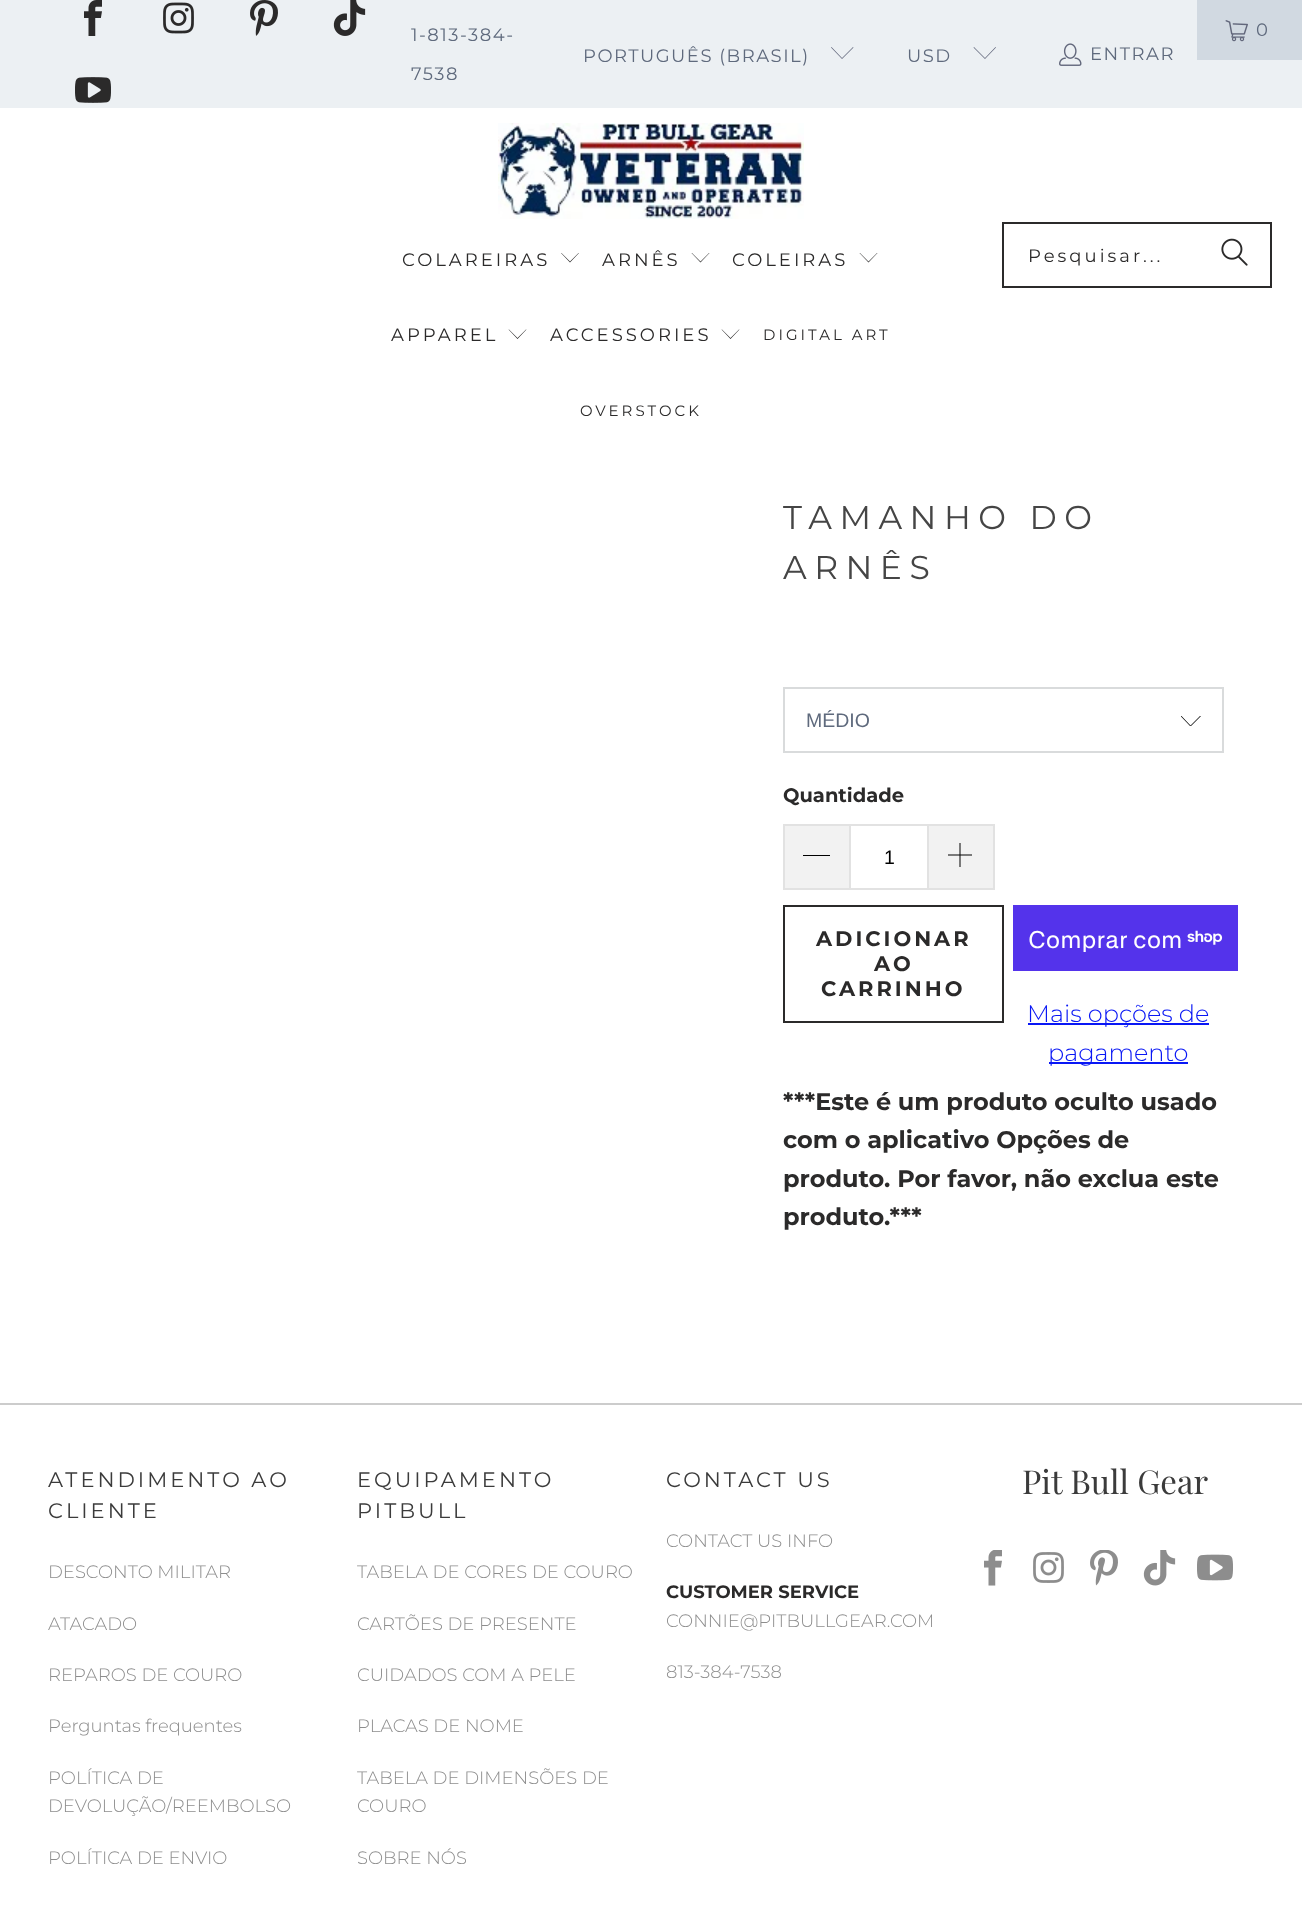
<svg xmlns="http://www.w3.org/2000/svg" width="1302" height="1910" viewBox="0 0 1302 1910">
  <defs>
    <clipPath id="clip1"><rect x="1181" y="716" width="21" height="10"/></clipPath>
  </defs>
  <rect width="100%" height="100%" fill="rgb(255,255,255)"/>
  <rect x="0" y="0" width="1302" height="108" fill="rgb(236,240,243)"/>
  <image x="84" y="0" width="18" height="36" href="pic1.png"/>
  <image x="163" y="2" width="31" height="32" href="pic2.png"/>
  <image x="250" y="0" width="28" height="36" href="pic3.png"/>
  <image x="333" y="0" width="33" height="36" href="pic4.png"/>
  <image x="75" y="77" width="36" height="26" href="pic5.png"/>
  <g font-family="Montserrat" font-size="18" letter-spacing="1.5" fill="rgb(95,106,125)">
    <text x="411" y="41">1-813-384-</text>
    <text x="411" y="80">7538</text>
  </g>
  <rect x="1197" y="0" width="105" height="60" fill="rgb(209,217,225)"/>
  <image x="1225" y="20" width="23" height="22" href="pic6.png"/>
  <g font-family="Montserrat" font-size="18" letter-spacing="1.5" fill="rgb(95,106,125)">
    <text x="1256" y="36">0</text>
    <text x="583" y="62">PORTUGUÊS (BRASIL)</text>
  </g>
  <path d="M842 59L831 47.5L831.5 47L842 58L853 47L853.5 47.5Z" fill="rgb(98,103,123)"/>
  <text x="907" y="62" font-family="Montserrat" font-size="18" letter-spacing="1.5" fill="rgb(95,106,125)">USD</text>
  <path d="M985 59L973.5 47.5L974 47L985 58L995.5 47L996 47.5Z" fill="rgb(98,103,123)"/>
  <image x="1059" y="43" width="23" height="23" href="pic7.png"/>
  <text x="1090" y="60" font-family="Montserrat" font-size="18" letter-spacing="1.5" fill="rgb(95,106,125)">ENTRAR</text>
  <image x="498" y="123" width="306" height="96" href="pic8.png"/>
  <text x="402" y="266" font-family="Montserrat" font-size="18" letter-spacing="3" fill="rgb(43,42,42)">COLAREIRAS</text>
  <path d="M570 262.5L561 253H561.5L570 261.5L578.5 253H579Z" fill="rgb(43,42,42)"/>
  <text x="602" y="266" font-family="Montserrat" font-size="18" letter-spacing="3" fill="rgb(43,42,42)">ARNÊS</text>
  <path d="M700.5 262.5L691.5 253H692L700.5 261.5L709 253H709.5Z" fill="rgb(43,42,42)"/>
  <text x="732" y="266" font-family="Montserrat" font-size="18" letter-spacing="3" fill="rgb(43,42,42)">COLEIRAS</text>
  <path d="M868.5 262.5L859.5 253H860L868.5 261.5L877 253H877.5Z" fill="rgb(43,42,42)"/>
  <text x="391" y="341" font-family="Montserrat" font-size="18" letter-spacing="3" fill="rgb(43,42,42)">APPAREL</text>
  <path d="M517.5 339L508.5 329.5H509L517.5 338L526 329.5H526.5Z" fill="rgb(43,42,42)"/>
  <text x="550" y="341" font-family="Montserrat" font-size="18" letter-spacing="3" fill="rgb(43,42,42)">ACCESSORIES</text>
  <path d="M730.5 339L721.5 329.5H722L730.5 338L739 329.5H739.5Z" fill="rgb(43,42,42)"/>
  <g font-family="Montserrat" font-size="15" letter-spacing="3" fill="rgb(43,42,42)">
    <text x="763" y="340">DIGITAL ART</text>
    <text x="580" y="416">OVERSTOCK</text>
  </g>
  <rect x="1003" y="223" width="268" height="64" fill="none" stroke="rgb(43,42,42)" stroke-width="2"/>
  <text x="1028" y="262" font-family="Montserrat" font-size="18" letter-spacing="3" fill="rgb(43,42,42)">Pesquisar...</text>
  <image x="1221" y="238" width="27" height="28" href="pic9.png"/>
  <g font-family="Montserrat" font-size="33" letter-spacing="7.5" fill="rgb(69,69,69)">
    <text>
      <tspan x="783" y="529">TAMANHO DO</tspan>
      <tspan x="783" y="579">ARNÊS</tspan>
    </text>
  </g>
  <g clip-path="url(#clip1)">
    <path d="M1190.5 726.5L1180.5 716L1181 715.5L1190.5 725.5L1200.5 715.5L1201 716Z" fill="rgb(0,0,0)"/>
  </g>
  <rect x="784" y="688" width="439" height="64" fill="none" stroke="rgb(217,219,220)" stroke-width="2"/>
  <text x="806" y="727" font-family="Liberation Sans" font-size="19.5" fill="rgb(95,106,125)">MÉDIO</text>
  <text x="783" y="802" font-family="Montserrat" font-size="19.5" font-weight="bold" fill="rgb(43,42,42)">Quantidade</text>
  <rect x="785" y="826" width="64" height="62" fill="rgb(242,242,242)"/>
  <rect x="783" y="824" width="66" height="2" fill="rgb(226,226,226)"/>
  <rect x="783" y="888" width="66" height="2" fill="rgb(226,226,226)"/>
  <rect x="783" y="824" width="2" height="66" fill="rgb(226,226,226)"/>
  <rect x="803" y="855" width="27" height="1" fill="rgb(0,0,0)"/>
  <rect x="850" y="825" width="78" height="64" fill="none" stroke="rgb(226,226,226)" stroke-width="2"/>
  <text x="884" y="864" font-family="Liberation Sans" font-size="19.5" fill="rgb(0,0,0)">1</text>
  <rect x="929" y="826" width="64" height="62" fill="rgb(242,242,242)"/>
  <rect x="929" y="824" width="66" height="2" fill="rgb(226,226,226)"/>
  <rect x="993" y="824" width="2" height="66" fill="rgb(226,226,226)"/>
  <rect x="929" y="888" width="66" height="2" fill="rgb(226,226,226)"/>
  <image x="948" y="843" width="24" height="24" href="pic10.png"/>
  <rect x="784" y="906" width="219" height="116" fill="none" stroke="rgb(43,42,42)" stroke-width="2"/>
  <g font-family="Montserrat" font-size="21" font-weight="bold" letter-spacing="3" fill="rgb(43,42,42)">
    <text x="816" y="946">ADICIONAR</text>
    <text x="874" y="971">AO</text>
    <text x="821" y="996">CARRINHO</text>
  </g>
  <rect x="1013" y="905" width="225" height="66" fill="rgb(84,51,235)"/>
  <text x="1028" y="948" font-family="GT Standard" font-size="24" fill="rgb(255,255,255)">Comprar com</text>
  <image x="1187" y="930" width="36" height="15" href="pic11.png"/>
  <rect x="1028" y="1023" width="181" height="2" fill="rgb(9,23,245)"/>
  <text x="1027" y="1022" font-family="Montserrat" font-size="24" font-weight="300" fill="rgb(9,23,245)">Mais opções de</text>
  <rect x="1049" y="1062" width="139" height="2" fill="rgb(9,23,245)"/>
  <text x="1048" y="1061" font-family="Montserrat" font-size="24" font-weight="300" fill="rgb(9,23,245)">pagamento</text>
  <g font-family="Montserrat" font-size="24" font-weight="bold" fill="rgb(43,42,42)">
    <text>
      <tspan x="783" y="1110">***Este é um produto oculto usado</tspan>
      <tspan x="783" y="1148">com o aplicativo Opções de</tspan>
      <tspan x="783" y="1187">produto. Por favor, não exclua este</tspan>
      <tspan x="783" y="1225">produto.***</tspan>
    </text>
  </g>
  <rect x="0" y="1403" width="1302" height="2" fill="rgb(204,204,204)"/>
  <g font-family="Montserrat" font-size="21" letter-spacing="3" fill="rgb(59,59,59)">
    <text>
      <tspan x="48" y="1487">ATENDIMENTO AO</tspan>
      <tspan x="48" y="1518">CLIENTE</tspan>
    </text>
  </g>
  <g font-family="Montserrat" font-size="18" font-weight="300" fill="rgb(141,141,141)">
    <text x="48" y="1578">DESCONTO MILITAR</text>
    <text x="48" y="1630">ATACADO</text>
    <text x="48" y="1681">REPAROS DE COURO</text>
    <text x="48" y="1732">Perguntas frequentes</text>
    <text>
      <tspan x="48" y="1784">POLÍTICA DE</tspan>
      <tspan x="48" y="1812">DEVOLUÇÃO/REEMBOLSO</tspan>
    </text>
    <text x="48" y="1864">POLÍTICA DE ENVIO</text>
  </g>
  <g font-family="Montserrat" font-size="21" letter-spacing="3" fill="rgb(59,59,59)">
    <text>
      <tspan x="357" y="1487">EQUIPAMENTO</tspan>
      <tspan x="357" y="1518">PITBULL</tspan>
    </text>
  </g>
  <g font-family="Montserrat" font-size="18" font-weight="300" fill="rgb(141,141,141)">
    <text x="357" y="1578">TABELA DE CORES DE COURO</text>
    <text x="357" y="1630">CARTÕES DE PRESENTE</text>
    <text x="357" y="1681">CUIDADOS COM A PELE</text>
    <text x="357" y="1732">PLACAS DE NOME</text>
    <text>
      <tspan x="357" y="1784">TABELA DE DIMENSÕES DE</tspan>
      <tspan x="357" y="1812">COURO</tspan>
    </text>
    <text x="357" y="1864">SOBRE NÓS</text>
  </g>
  <text x="666" y="1487" font-family="Montserrat" font-size="21" letter-spacing="3" fill="rgb(59,59,59)">CONTACT US</text>
  <text x="666" y="1547" font-family="Montserrat" font-size="18" font-weight="300" fill="rgb(141,141,141)">CONTACT US INFO</text>
  <text x="666" y="1598" font-family="Montserrat" font-size="18" font-weight="bold" fill="rgb(43,42,42)">CUSTOMER SERVICE</text>
  <g font-family="Montserrat" font-size="18" font-weight="300" fill="rgb(141,141,141)">
    <text x="666" y="1627">CONNIE@PITBULLGEAR.COM</text>
    <text x="666" y="1678">813-384-7538</text>
  </g>
  <text x="1022" y="1494" font-family="Playfair Display" font-size="33" fill="rgb(59,59,59)">Pit Bull Gear</text>
  <image x="984" y="1550" width="18" height="36" href="pic12.png"/>
  <image x="1033" y="1552" width="31" height="31" href="pic13.png"/>
  <image x="1090" y="1550" width="28" height="36" href="pic14.png"/>
  <image x="1143" y="1550" width="33" height="36" href="pic15.png"/>
  <image x="1197" y="1554" width="36" height="27" href="pic16.png"/>
</svg>
